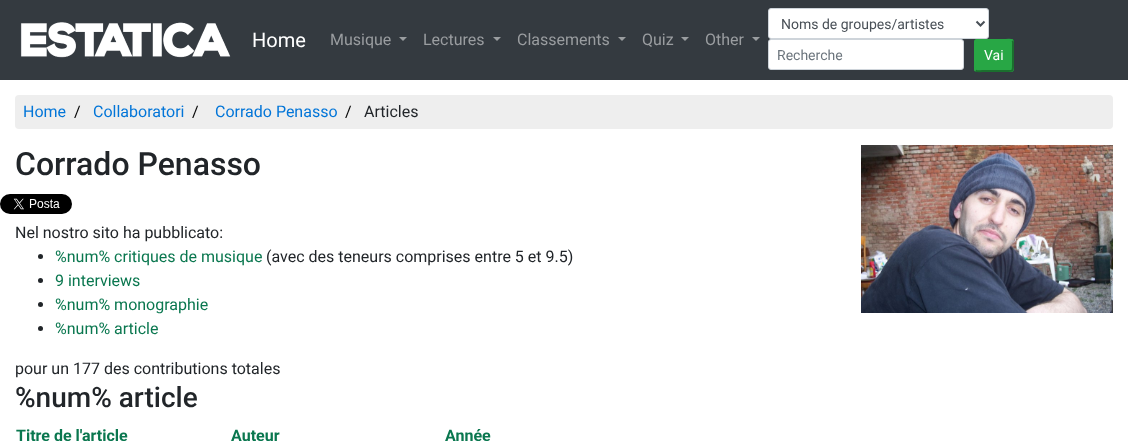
<svg xmlns="http://www.w3.org/2000/svg" width="1128" height="441" viewBox="0 0 1128 441">
  <rect width="100%" height="100%" fill="rgb(255,255,255)"/>
  <rect x="0" y="0" width="1128" height="80" fill="rgb(52,58,64)"/>
  <image x="20" y="22" width="211" height="37" href="pic1.png"/>
  <text x="252" y="47" font-family="Roboto" font-size="20" fill="rgb(255,255,255)">Home</text>
  <text x="330" y="45" font-family="Roboto" font-size="16" fill="rgb(154,157,160)">Musique</text>
  <path d="M399 37H407L403 41Z" fill="rgb(154,157,160)"/>
  <text x="423" y="45" font-family="Roboto" font-size="16" fill="rgb(154,157,160)">Lectures</text>
  <path d="M493 37H501L497 41Z" fill="rgb(154,157,160)"/>
  <text x="517" y="45" font-family="Roboto" font-size="16" fill="rgb(154,157,160)">Classements</text>
  <path d="M618 37H626L622 41Z" fill="rgb(154,157,160)"/>
  <text x="642" y="45" font-family="Roboto" font-size="16" fill="rgb(154,157,160)">Quiz</text>
  <path d="M681 37H689L685 41Z" fill="rgb(154,157,160)"/>
  <text x="705" y="45" font-family="Roboto" font-size="16" fill="rgb(154,157,160)">Other</text>
  <path d="M752 37H760L756 41Z" fill="rgb(154,157,160)"/>
  <rect x="768.5" y="8.5" width="220" height="30" rx="2.5" fill="rgb(255,255,255)" stroke="rgb(206,212,218)"/>
  <path d="M976.5 21.5L980.5 25.5L984.5 21.5" fill="none" stroke="rgb(73,80,87)" stroke-width="2"/>
  <text x="781" y="29" font-family="Roboto" font-size="14" fill="rgb(73,80,87)">Noms de groupes/artistes</text>
  <rect x="768.5" y="39.5" width="195" height="30" rx="2.5" fill="rgb(255,255,255)" stroke="rgb(206,212,218)"/>
  <text x="777" y="60" font-family="Roboto" font-size="14" fill="rgb(108,117,125)">Recherche</text>
  <rect x="974" y="39" width="40" height="33" rx="3" fill="rgb(40,167,69)"/>
  <path d="M1012.5 40.5C1013.5 42 1013 45.5 1013 46.5V64.5C1013 72 1013 71 1005 71H983C982.5 71 977 72 975.5 70.5" fill="none" stroke="rgb(27,111,46)" stroke-width="2"/>
  <path d="M975.5 70.5C974.5 69 975 65.5 975 64.5V46.5C975 39 975 40 983 40H1005C1005.5 40 1011 39 1012.5 40.5" fill="none" stroke="rgb(40,167,69)" stroke-width="2"/>
  <text x="984" y="60" font-family="Roboto" font-size="14" fill="rgb(255,255,255)">Vai</text>
  <rect x="15" y="95" width="1098" height="34" rx="4" fill="rgb(238,238,238)"/>
  <text x="23" y="117" font-family="Roboto" font-size="16" fill="rgb(2,117,216)">Home</text>
  <text x="74" y="117" font-family="Roboto" font-size="16" fill="rgb(0,0,0)">/</text>
  <text x="93" y="117" font-family="Roboto" font-size="16" fill="rgb(2,117,216)">Collaboratori</text>
  <text x="192" y="117" font-family="Roboto" font-size="16" fill="rgb(0,0,0)">/</text>
  <text x="215" y="117" font-family="Roboto" font-size="16" fill="rgb(2,117,216)">Corrado Penasso</text>
  <text x="345" y="117" font-family="Roboto" font-size="16" fill="rgb(0,0,0)">/</text>
  <text x="364" y="117" font-family="Roboto" font-size="16" fill="rgb(33,37,41)">Articles</text>
  <text x="15" y="175" font-family="Roboto" font-size="32" font-weight="500" fill="rgb(33,37,41)">Corrado Penasso</text>
  <image x="0" y="194" width="72" height="20" href="pic2.png"/>
  <text x="15" y="238" font-family="Roboto" font-size="16" fill="rgb(33,37,41)">Nel nostro sito ha pubblicato:</text>
  <circle cx="40.5" cy="256.5" r="2.5" fill="rgb(33,37,41)"/>
  <text x="55" y="262" font-family="Roboto" font-size="16" fill="rgb(10,119,79)">%num% critiques de musique</text>
  <text x="266" y="262" font-family="Roboto" font-size="16" fill="rgb(33,37,41)">(avec des teneurs comprises entre 5 et 9.5)</text>
  <circle cx="40.5" cy="280.5" r="2.5" fill="rgb(33,37,41)"/>
  <text x="55" y="286" font-family="Roboto" font-size="16" fill="rgb(10,119,79)">9 interviews</text>
  <circle cx="40.5" cy="304.5" r="2.5" fill="rgb(33,37,41)"/>
  <text x="55" y="310" font-family="Roboto" font-size="16" fill="rgb(10,119,79)">%num% monographie</text>
  <circle cx="40.5" cy="328.5" r="2.5" fill="rgb(33,37,41)"/>
  <text x="55" y="334" font-family="Roboto" font-size="16" fill="rgb(10,119,79)">%num% article</text>
  <text x="15" y="374" font-family="Roboto" font-size="16" fill="rgb(33,37,41)">pour un 177 des contributions totales</text>
  <text x="15" y="407" font-family="Roboto" font-size="28" font-weight="500" fill="rgb(33,37,41)">%num% article</text>
  <g font-family="Roboto" font-size="16" font-weight="bold" fill="rgb(10,119,79)">
    <text x="16" y="441">Titre de l'article</text>
    <text x="231" y="441">Auteur</text>
    <text x="445" y="441">Année</text>
  </g>
  <image x="861" y="145" width="252" height="168" href="pic3.png"/>
</svg>
